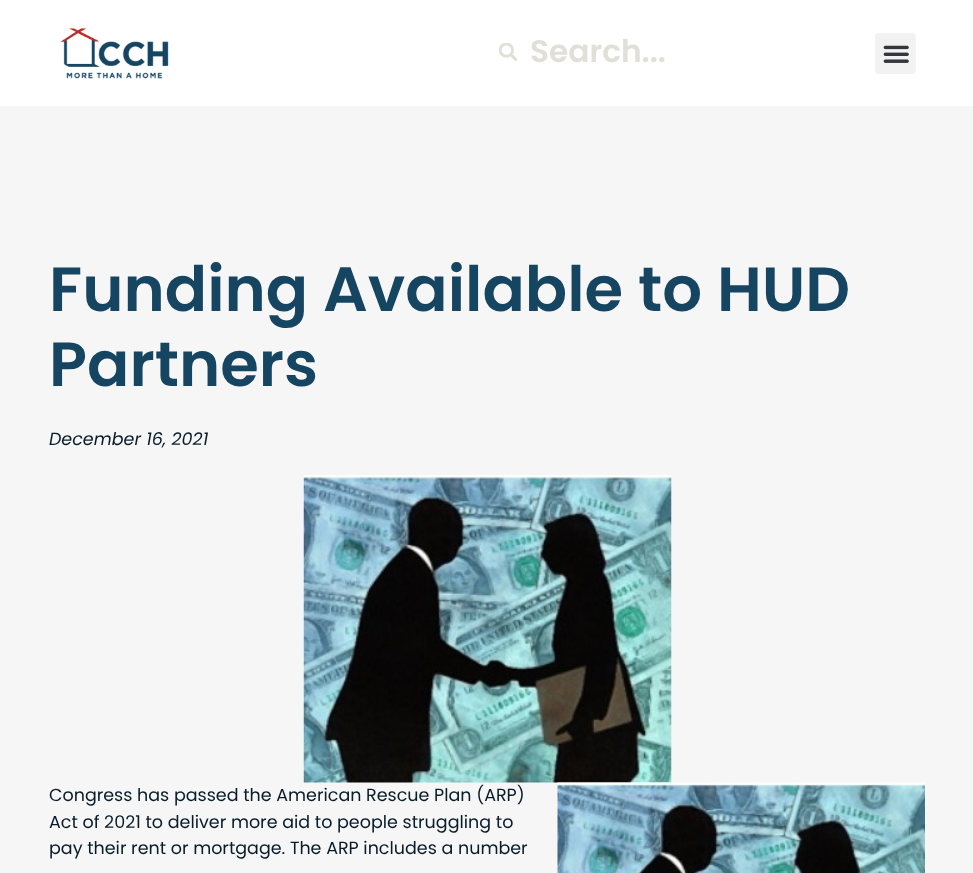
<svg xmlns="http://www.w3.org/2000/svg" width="973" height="873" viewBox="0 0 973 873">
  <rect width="100%" height="100%" fill="rgb(246,246,246)"/>
  <rect x="0" y="0" width="973" height="106" fill="rgb(255,255,255)"/>
  <image x="60" y="28" width="109" height="51" href="pic1.png"/>
  <image x="499" y="43" width="19" height="18" href="pic2.png"/>
  <text x="530" y="62" font-family="Poppins" font-size="31.25" font-weight="600" fill="rgb(224,224,216)">Search...</text>
  <rect x="875" y="33" width="41" height="41" rx="4" fill="rgb(242,242,242)"/>
  <image x="883" y="45" width="26" height="18" href="pic3.png"/>
  <g font-family="Poppins" font-size="62.5" font-weight="600" fill="rgb(22,69,98)">
    <text>
      <tspan x="49" y="311">Funding Available to HUD</tspan>
      <tspan x="49" y="386">Partners</tspan>
    </text>
  </g>
  <text x="49" y="445" font-family="Poppins" font-size="17.5" font-style="italic" fill="rgb(8,28,41)">December 16, 2021</text>
  <image x="303" y="475" width="369" height="308" href="pic4.png"/>
  <text x="49" y="801" font-family="Poppins" font-size="17.5" fill="rgb(8,28,41)">Congress has passed the American Rescue Plan (ARP)</text>
  <image x="557" y="782" width="368" height="91" href="pic5.png"/>
  <g font-family="Poppins" font-size="17.5" fill="rgb(8,28,41)">
    <text>
      <tspan x="49" y="828">Act of 2021 to deliver more aid to people struggling to</tspan>
      <tspan x="49" y="854">pay their rent or mortgage. The ARP includes a number</tspan>
    </text>
  </g>
</svg>
